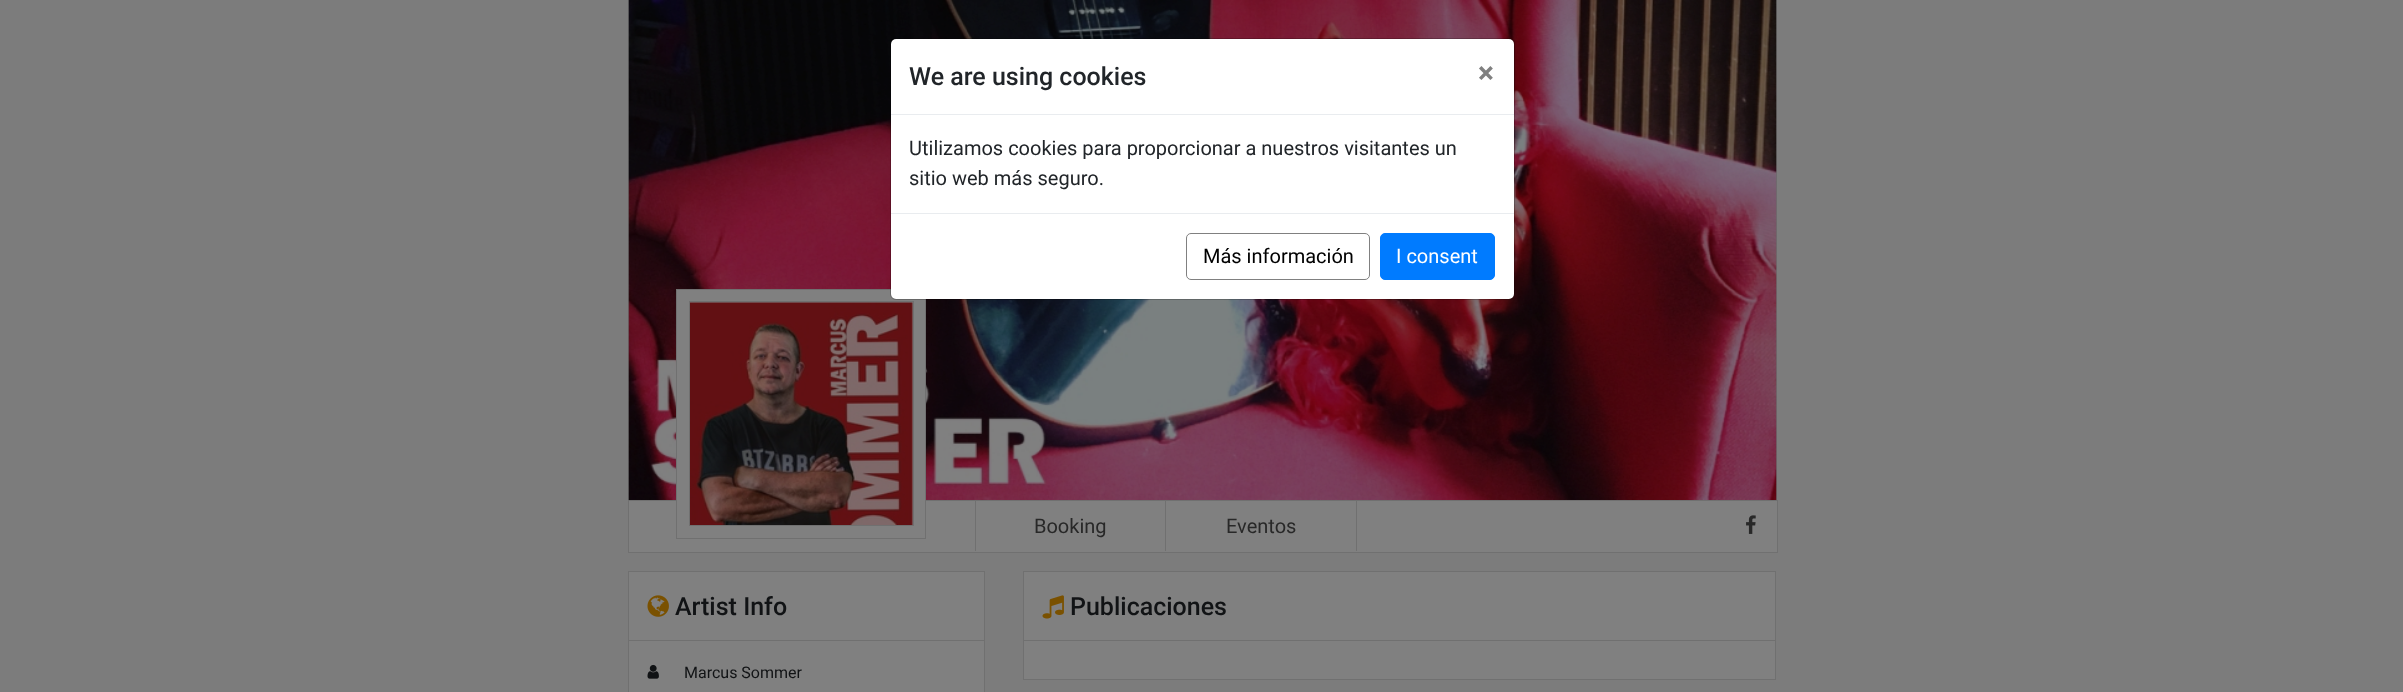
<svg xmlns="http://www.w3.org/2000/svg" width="2403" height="692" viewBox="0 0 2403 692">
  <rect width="100%" height="100%" fill="rgb(124,124,124)"/>
  <rect x="628" y="0" width="1" height="500" fill="rgb(108,108,108)"/>
  <rect x="1776" y="0" width="1" height="500" fill="rgb(108,108,108)"/>
  <image x="628" y="0" width="1149" height="500" href="pic1.png"/>
  <rect x="628.5" y="500.5" width="1149" height="52" fill="rgb(128,128,128)" stroke="rgb(112,112,112)"/>
  <rect x="677" y="290" width="248" height="211" fill="rgb(128,128,128)"/>
  <rect x="676.5" y="289.5" width="249" height="249" fill="none" stroke="rgb(112,112,112)"/>
  <rect x="891" y="39" width="623" height="260" rx="5" fill="rgb(255,255,255)"/>
  <rect x="890.5" y="38.5" width="624" height="261" rx="5.5" fill="none" stroke="rgba(0,0,0,0.2)"/>
  <rect x="891" y="114" width="623" height="1" fill="rgb(233,236,239)"/>
  <text x="909" y="85" font-family="Roboto" font-size="25" font-weight="500" fill="rgb(33,37,41)">We are using cookies</text>
  <text x="1478" y="83" font-family="Roboto" font-size="30" font-weight="bold" fill="rgb(128,128,128)">×</text>
  <g font-family="Roboto" font-size="20" fill="rgb(33,37,41)">
    <text>
      <tspan x="909" y="155">Utilizamos cookies para proporcionar a nuestros visitantes un</tspan>
      <tspan x="909" y="185">sitio web más seguro.</tspan>
    </text>
  </g>
  <rect x="891" y="213" width="623" height="1" fill="rgb(233,236,239)"/>
  <rect x="1186.5" y="233.5" width="183" height="46" rx="4.5" fill="none" stroke="rgb(128,128,128)"/>
  <text x="1203" y="263" font-family="Roboto" font-size="20" fill="rgb(0,0,0)">Más información</text>
  <rect x="1380.5" y="233.5" width="114" height="46" rx="4.5" fill="rgb(0,123,255)" stroke="rgb(0,123,255)"/>
  <text x="1396" y="263" font-family="Roboto" font-size="20" fill="rgb(255,255,255)">I consent</text>
  <rect x="689.5" y="301.5" width="224" height="224" fill="none" stroke="rgb(112,112,112)"/>
  <image x="690" y="302" width="223" height="223" href="pic2.png"/>
  <rect x="1165" y="501" width="1" height="50" fill="rgb(112,112,112)"/>
  <rect x="975" y="501" width="1" height="50" fill="rgb(112,112,112)"/>
  <text x="1034" y="533" font-family="Roboto" font-size="20" fill="rgb(40,40,40)">Booking</text>
  <rect x="1356" y="501" width="1" height="50" fill="rgb(112,112,112)"/>
  <text x="1226" y="533" font-family="Roboto" font-size="20" fill="rgb(40,40,40)">Eventos</text>
  <image x="1746" y="515" width="10" height="19" href="pic3.png"/>
  <rect x="628.5" y="571.5" width="356" height="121" fill="rgb(128,128,128)" stroke="rgb(112,112,112)"/>
  <image x="647" y="595" width="22" height="22" href="pic4.png"/>
  <text x="675" y="615" font-family="Roboto" font-size="25" font-weight="500" fill="rgb(17,19,21)">Artist Info</text>
  <rect x="629" y="640" width="355" height="1" fill="rgb(112,112,112)"/>
  <image x="647" y="664" width="12" height="15" href="pic5.png"/>
  <text x="684" y="678" font-family="Roboto" font-size="16" fill="rgb(17,19,21)">Marcus Sommer</text>
  <rect x="1023.5" y="571.5" width="752" height="108" fill="rgb(128,128,128)" stroke="rgb(112,112,112)"/>
  <image x="1042" y="595" width="22" height="24" href="pic6.png"/>
  <text x="1070" y="615" font-family="Roboto" font-size="25" font-weight="500" fill="rgb(17,19,21)">Publicaciones</text>
  <rect x="1024" y="640" width="751" height="1" fill="rgb(112,112,112)"/>
</svg>
